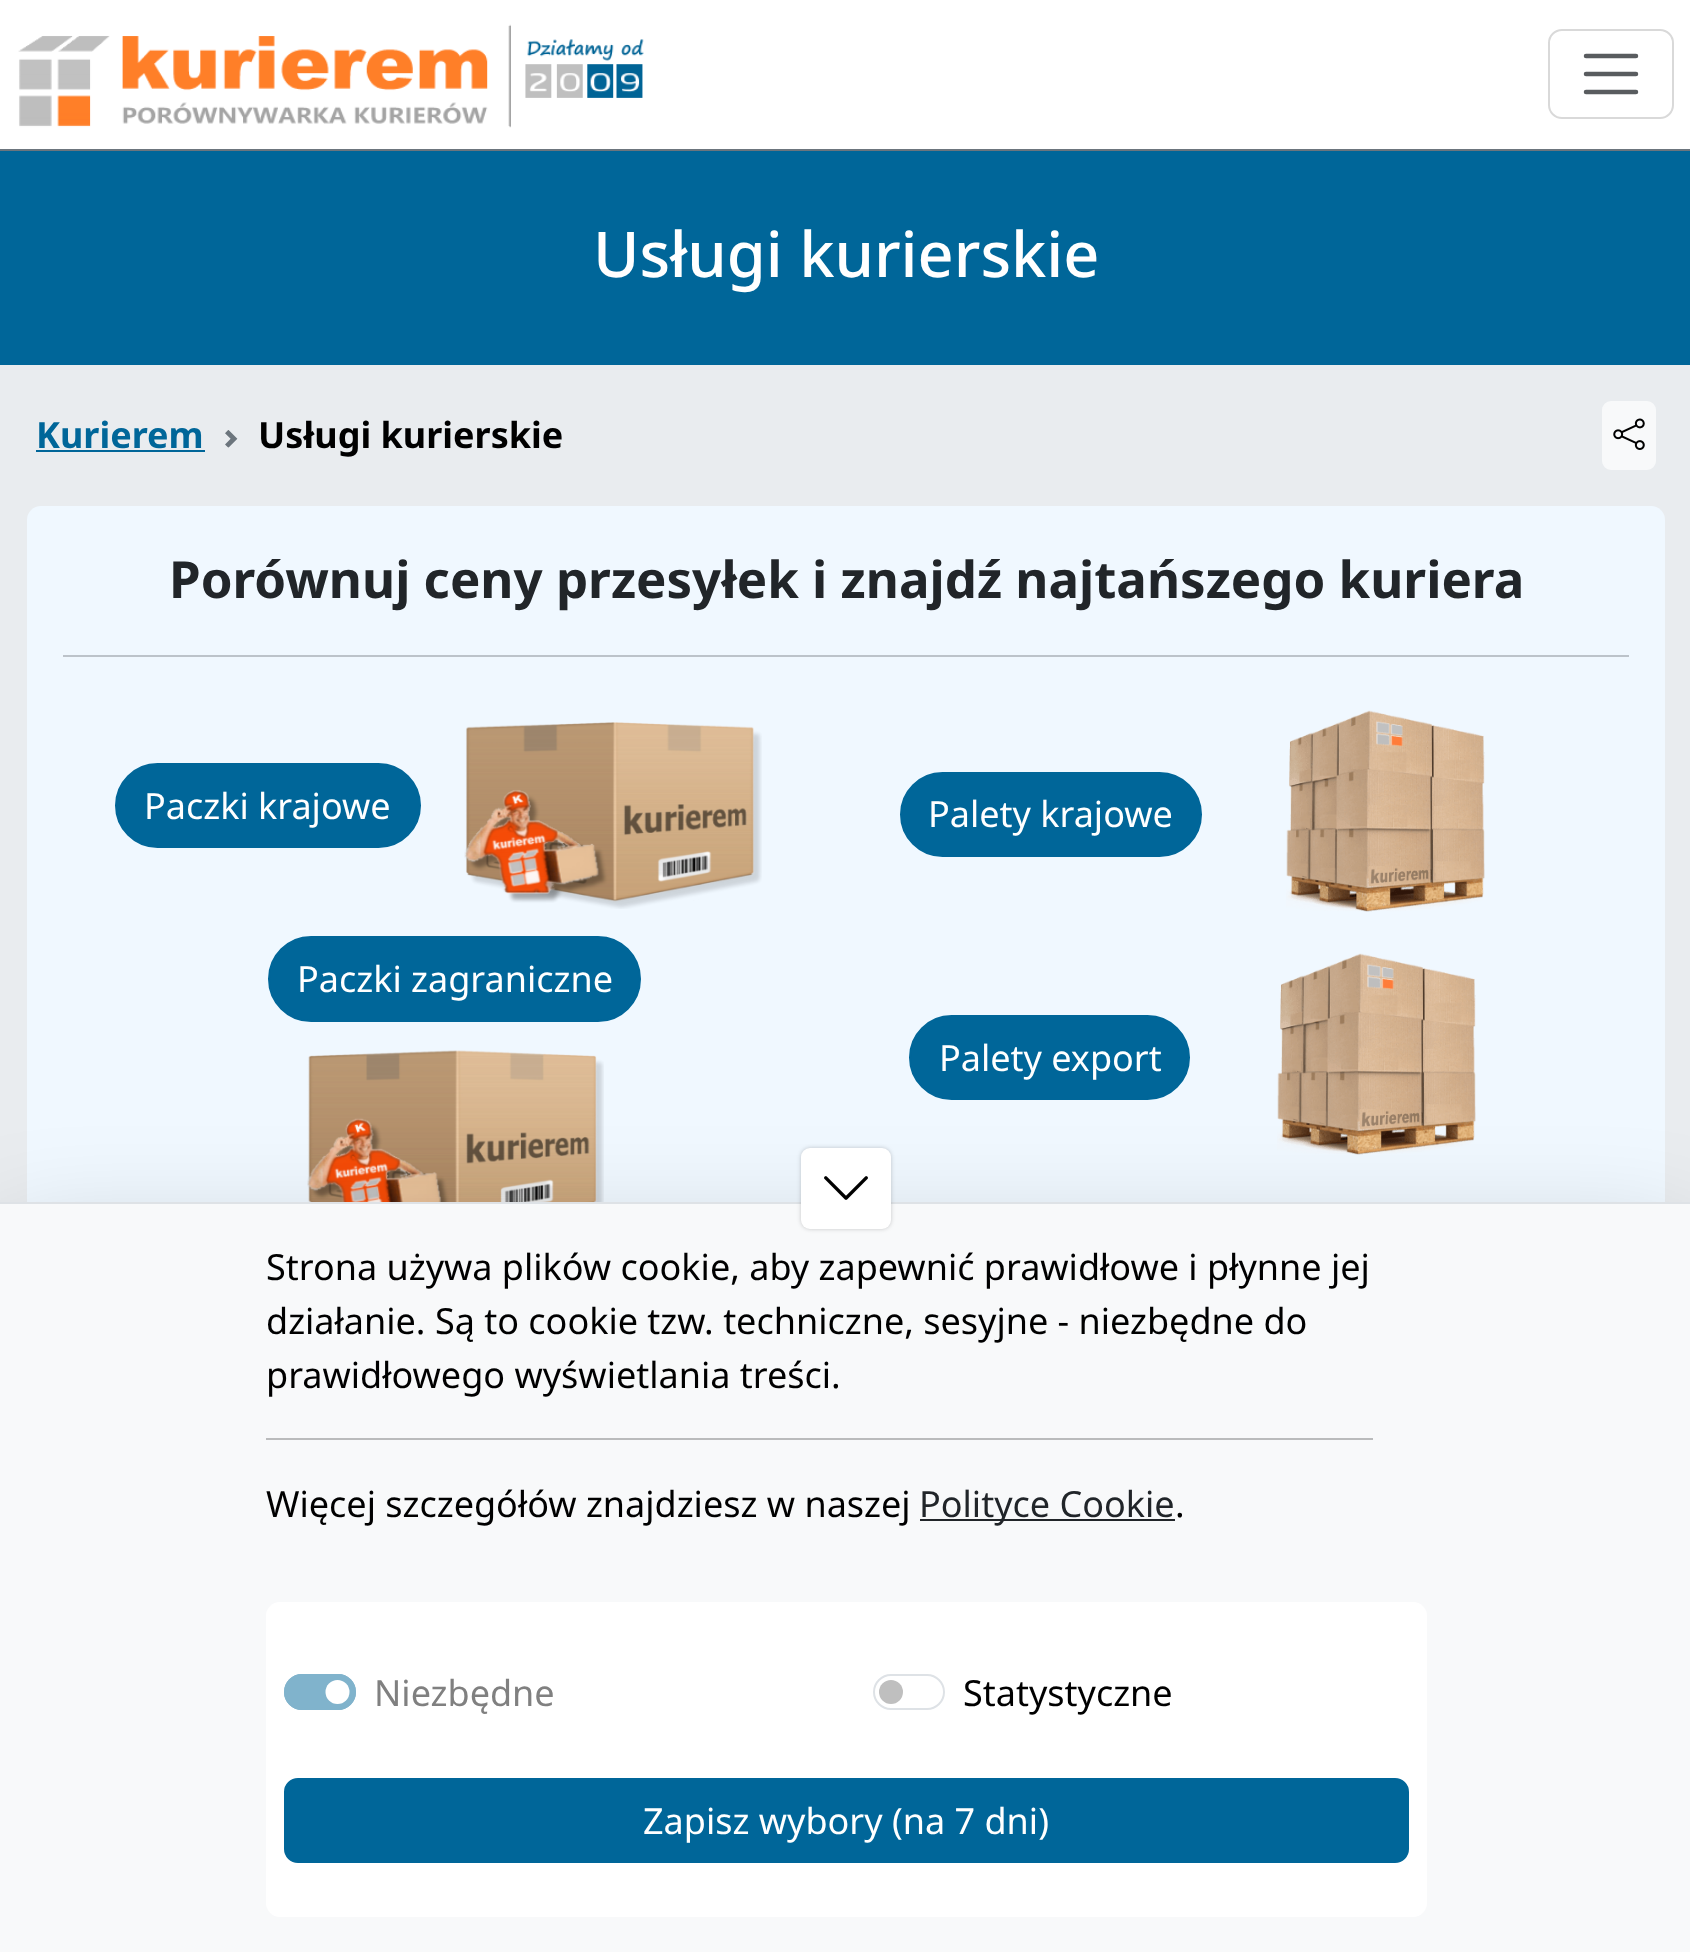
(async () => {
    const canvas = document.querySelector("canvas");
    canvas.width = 1690;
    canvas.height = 1952;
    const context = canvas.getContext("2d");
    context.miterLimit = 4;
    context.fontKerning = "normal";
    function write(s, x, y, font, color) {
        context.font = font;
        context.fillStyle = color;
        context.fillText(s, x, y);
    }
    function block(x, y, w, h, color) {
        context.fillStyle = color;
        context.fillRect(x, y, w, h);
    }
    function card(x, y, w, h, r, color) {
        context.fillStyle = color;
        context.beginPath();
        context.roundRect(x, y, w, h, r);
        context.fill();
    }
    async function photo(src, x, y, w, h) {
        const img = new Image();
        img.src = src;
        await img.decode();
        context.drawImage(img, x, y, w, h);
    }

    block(0, 0, 1690, 1952, "rgb(233, 236, 239)");
    block(0, 0, 1690, 149, "rgb(255, 255, 255)");
    block(0, 149, 1690, 2, "rgb(108, 117, 125)");
    await photo("media/1.png", 18, 24, 626, 104);
    context.beginPath();
    context.roundRect(1549, 30, 124, 88, 13);
    context.strokeStyle = "rgb(217, 217, 217)";
    context.lineWidth = 2;
    context.stroke();
    context.beginPath();
    context.moveTo(1586, 56);
    context.lineTo(1636, 56);
    context.moveTo(1586, 74);
    context.lineTo(1636, 74);
    context.moveTo(1586, 92);
    context.lineTo(1636, 92);
    context.strokeStyle = "rgb(89, 92, 95)";
    context.lineWidth = 4.5;
    context.lineCap = "round";
    context.stroke();
    block(0, 151, 1690, 214, "rgb(0, 102, 153)");
    write("Usługi kurierskie", 593, 277, "500 63px Noto Sans", "rgb(255, 255, 255)");
    write("Kurierem", 36, 448, "bold 36px Noto Sans", "rgb(0, 102, 153)");
    block(36, 450, 169, 2, "rgb(0, 102, 153)");
    await photo("media/2.png", 225, 430, 13, 18);
    write("Usługi kurierskie", 258, 448, "bold 36px Noto Sans", "rgb(0, 0, 0)");
    context.fillStyle = "rgb(248, 249, 250)";
    context.beginPath();
    context.roundRect(1603, 402, 52, 67, 8);
    context.fill();
    context.strokeStyle = "rgb(248, 249, 250)";
    context.lineWidth = 2;
    context.stroke();
    await photo("media/3.png", 1613, 418, 32, 32);
    card(27, 506, 1638, 779, 14, "rgb(240, 248, 255)");
    write("Porównuj ceny przesyłek i znajdź najtańszego kuriera", 169, 598, "bold 51px Noto Sans", "rgb(33, 37, 41)");
    block(63, 655, 1566, 2, "rgb(188, 195, 202)");
    context.fillStyle = "rgb(0, 102, 153)";
    context.beginPath();
    context.roundRect(116, 764, 304, 83, 41.5);
    context.fill();
    context.strokeStyle = "rgb(0, 102, 153)";
    context.stroke();
    write("Paczki krajowe", 144, 819, "36px Noto Sans", "rgb(255, 255, 255)");
    await photo("media/4.png", 464, 722, 298, 187);
    context.fillStyle = "rgb(0, 102, 153)";
    context.beginPath();
    context.roundRect(901, 773, 300, 83, 41.5);
    context.fill();
    context.stroke();
    write("Palety krajowe", 928, 827, "36px Noto Sans", "rgb(255, 255, 255)");
    await photo("media/5.png", 1286, 710, 199, 202);
    context.fillStyle = "rgb(0, 102, 153)";
    context.beginPath();
    context.roundRect(269, 937, 371, 84, 42);
    context.fill();
    context.stroke();
    write("Paczki zagraniczne", 297, 992, "36px Noto Sans", "rgb(255, 255, 255)");
    await photo("media/6.png", 307, 1050, 297, 152);
    context.fillStyle = "rgb(0, 102, 153)";
    context.beginPath();
    context.roundRect(910, 1016, 279, 83, 41.5);
    context.fill();
    context.stroke();
    write("Palety export", 939, 1071, "36px Noto Sans", "rgb(255, 255, 255)");
    await photo("media/7.png", 1277, 953, 199, 202);
    context.fillStyle = "rgba(0, 0, 0, 0.18)";
    context.filter = "blur(54px)";
    context.beginPath();
    context.rect(0, 1238, 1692, 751);
    context.fill();
    context.filter = "none";
    block(0, 1204, 1690, 748, "rgb(248, 249, 250)");
    block(0, 1202, 1690, 2, "rgb(222, 226, 230)");
    context.fillStyle = "rgba(0, 0, 0, 0.2)";
    context.filter = "blur(2px)";
    context.beginPath();
    context.roundRect(801, 1148, 90, 81, 9);
    context.fill();
    context.filter = "none";
    card(801, 1148, 90, 81, 9, "rgb(255, 255, 255)");
    await photo("media/8.png", 824, 1176, 44, 24);
    write("Strona używa plików cookie, aby zapewnić prawidłowe i płynne jej", 266, 1280, "36px Noto Sans", "rgb(0, 0, 0)");
    write("działanie. Są to cookie tzw. techniczne, sesyjne - niezbędne do", 266, 1334, "36px Noto Sans", "rgb(0, 0, 0)");
    write("prawidłowego wyświetlania treści.", 266, 1388, "36px Noto Sans", "rgb(0, 0, 0)");
    block(266, 1438, 1107, 2, "rgb(186, 187, 188)");
    write("Więcej szczegółów znajdziesz w naszej", 266, 1517, "36px Noto Sans", "rgb(0, 0, 0)");
    block(920, 1519, 255, 2, "rgb(33, 37, 41)");
    write("Polityce Cookie", 919, 1517, "36px Noto Sans", "rgb(33, 37, 41)");
    write(".", 1175, 1517, "36px Noto Sans", "rgb(0, 0, 0)");
    card(266, 1602, 1161, 315, 14, "rgb(255, 255, 255)");
    card(284, 1674, 72, 36, 18, "rgb(128, 179, 204)");
    context.fillStyle = "rgb(255, 255, 255)";
    context.beginPath();
    context.arc(337.5, 1692, 12, 0, Math.PI * 2);
    context.fill();
    context.beginPath();
    context.roundRect(285, 1675, 70, 34, 17);
    context.strokeStyle = "rgb(128, 179, 204)";
    context.stroke();
    write("Niezbędne", 374, 1706, "36px Noto Sans", "rgb(128, 128, 128)");
    context.fillStyle = "rgb(191, 191, 191)";
    context.beginPath();
    context.arc(891, 1692, 12, 0, Math.PI * 2);
    context.fill();
    context.beginPath();
    context.roundRect(874, 1675, 70, 34, 17);
    context.strokeStyle = "rgb(222, 226, 230)";
    context.stroke();
    write("Statystyczne", 963, 1706, "36px Noto Sans", "rgb(0, 0, 0)");
    context.fillStyle = "rgb(0, 102, 153)";
    context.beginPath();
    context.roundRect(285, 1779, 1123, 83, 13);
    context.fill();
    context.strokeStyle = "rgb(0, 102, 153)";
    context.stroke();
    write("Zapisz wybory (na 7 dni)", 643, 1834, "36px Noto Sans", "rgb(255, 255, 255)");
})();
